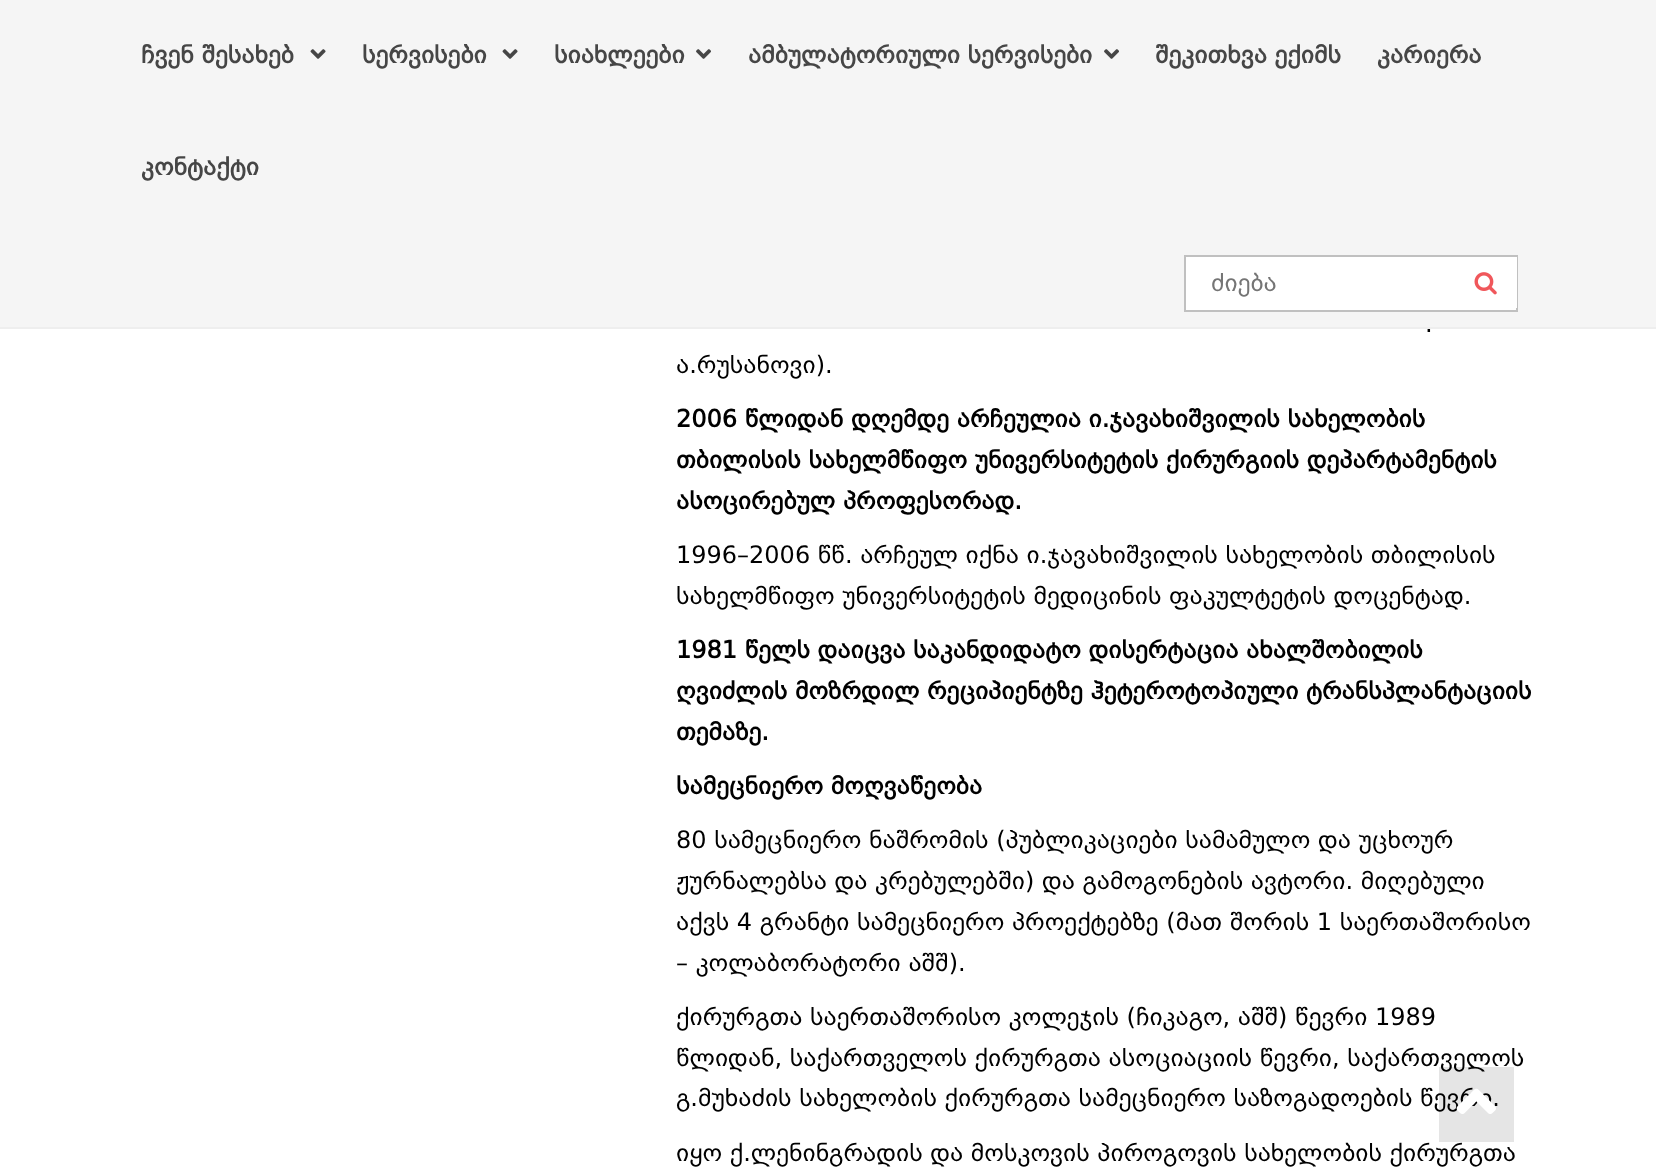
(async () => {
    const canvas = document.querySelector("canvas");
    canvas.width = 1656;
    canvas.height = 1175;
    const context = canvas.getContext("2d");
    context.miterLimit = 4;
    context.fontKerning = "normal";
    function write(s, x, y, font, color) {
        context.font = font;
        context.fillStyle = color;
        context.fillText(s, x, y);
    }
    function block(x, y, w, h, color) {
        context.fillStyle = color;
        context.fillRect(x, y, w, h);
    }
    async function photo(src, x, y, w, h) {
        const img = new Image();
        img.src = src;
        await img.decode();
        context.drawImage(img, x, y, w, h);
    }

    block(0, 0, 1656, 1175, "rgb(255, 255, 255)");
    block(0, 0, 1656, 327, "rgb(245, 245, 245)");
    block(0, 327, 1656, 2, "rgb(238, 238, 238)");
    write("ჩვენ შესახებ", 141, 63, "bold 24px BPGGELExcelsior", "rgb(70, 70, 70)");
    await photo("media/1.png", 310, 49, 16, 10);
    write("სერვისები", 362, 63, "bold 24px BPGGELExcelsior", "rgb(70, 70, 70)");
    await photo("media/1.png", 502, 49, 16, 10);
    write("სიახლეები", 554, 63, "bold 24px BPGGELExcelsior", "rgb(70, 70, 70)");
    await photo("media/2.png", 696, 49, 15, 10);
    write("ამბულატორიული სერვისები", 748, 63, "bold 24px BPGGELExcelsior", "rgb(70, 70, 70)");
    await photo("media/2.png", 1104, 49, 15, 10);
    write("შეკითხვა ექიმს", 1155, 63, "bold 24px BPGGELExcelsior", "rgb(70, 70, 70)");
    write("კარიერა", 1377, 63, "bold 24px BPGGELExcelsior", "rgb(70, 70, 70)");
    write("კონტაქტი", 141, 175, "bold 24px BPGGELExcelsior", "rgb(70, 70, 70)");
    context.fillStyle = "rgb(255, 255, 255)";
    context.beginPath();
    context.rect(1185, 256, 332, 55);
    context.fill();
    context.strokeStyle = "rgb(192, 192, 192)";
    context.lineWidth = 2;
    context.stroke();
    write("ძიება", 1211, 291, "24px BPGGELExcelsior", "rgb(117, 117, 117)");
    await photo("media/3.png", 1474, 272, 23, 23);
    block(1516, 257, 1, 51, "rgb(255, 255, 255)");
    write(".", 1425, 332, "24px BPGGELExcelsior", "rgb(0, 0, 0)");
    write("ა.რუსანოვი).", 676, 373, "24px BPGGELExcelsior", "rgb(0, 0, 0)");
    write("2006 წლიდან დღემდე არჩეულია ი.ჯავახიშვილის სახელობის", 676, 427, "bold 24px BPGGELExcelsior", "rgb(0, 0, 0)");
    write("თბილისის სახელმწიფო უნივერსიტეტის ქირურგიის დეპარტამენტის", 676, 468, "bold 24px BPGGELExcelsior", "rgb(0, 0, 0)");
    write("ასოცირებულ პროფესორად.", 676, 509, "bold 24px BPGGELExcelsior", "rgb(0, 0, 0)");
    write("1996–2006 წწ. არჩეულ იქნა ი.ჯავახიშვილის სახელობის თბილისის", 676, 563, "24px BPGGELExcelsior", "rgb(0, 0, 0)");
    write("სახელმწიფო უნივერსიტეტის მედიცინის ფაკულტეტის დოცენტად.", 676, 604, "24px BPGGELExcelsior", "rgb(0, 0, 0)");
    write("1981 წელს დაიცვა საკანდიდატო დისერტაცია ახალშობილის", 676, 658, "bold 24px BPGGELExcelsior", "rgb(0, 0, 0)");
    write("ღვიძლის მოზრდილ რეციპიენტზე ჰეტეროტოპიული ტრანსპლანტაციის", 676, 699, "bold 24px BPGGELExcelsior", "rgb(0, 0, 0)");
    write("თემაზე.", 676, 740, "bold 24px BPGGELExcelsior", "rgb(0, 0, 0)");
    write("სამეცნიერო მოღვაწეობა", 676, 794, "bold 24px BPGGELExcelsior", "rgb(0, 0, 0)");
    write("80 სამეცნიერო ნაშრომის (პუბლიკაციები სამამულო და უცხოურ", 676, 848, "24px BPGGELExcelsior", "rgb(0, 0, 0)");
    write("ჟურნალებსა და კრებულებში) და გამოგონების ავტორი. მიღებული", 676, 889, "24px BPGGELExcelsior", "rgb(0, 0, 0)");
    write("აქვს 4 გრანტი სამეცნიერო პროექტებზე (მათ შორის 1 საერთაშორისო", 676, 930, "24px BPGGELExcelsior", "rgb(0, 0, 0)");
    write("– კოლაბორატორი აშშ).", 676, 971, "24px BPGGELExcelsior", "rgb(0, 0, 0)");
    write("ქირურგთა საერთაშორისო კოლეჯის (ჩიკაგო, აშშ) წევრი 1989", 676, 1025, "24px BPGGELExcelsior", "rgb(0, 0, 0)");
    write("წლიდან, საქართველოს ქირურგთა ასოციაციის წევრი, საქართველოს", 676, 1066, "24px BPGGELExcelsior", "rgb(0, 0, 0)");
    write("გ.მუხაძის სახელობის ქირურგთა სამეცნიერო საზოგადოების წევრი.", 676, 1106, "24px BPGGELExcelsior", "rgb(0, 0, 0)");
    write("იყო ქ.ლენინგრადის და მოსკოვის პიროგოვის სახელობის ქირურგთა", 676, 1161, "24px BPGGELExcelsior", "rgb(0, 0, 0)");
    block(1439, 1067, 75, 75, "rgba(0, 0, 0, 0.1)");
    await photo("media/4.png", 1456, 1088, 40, 26);
})();
